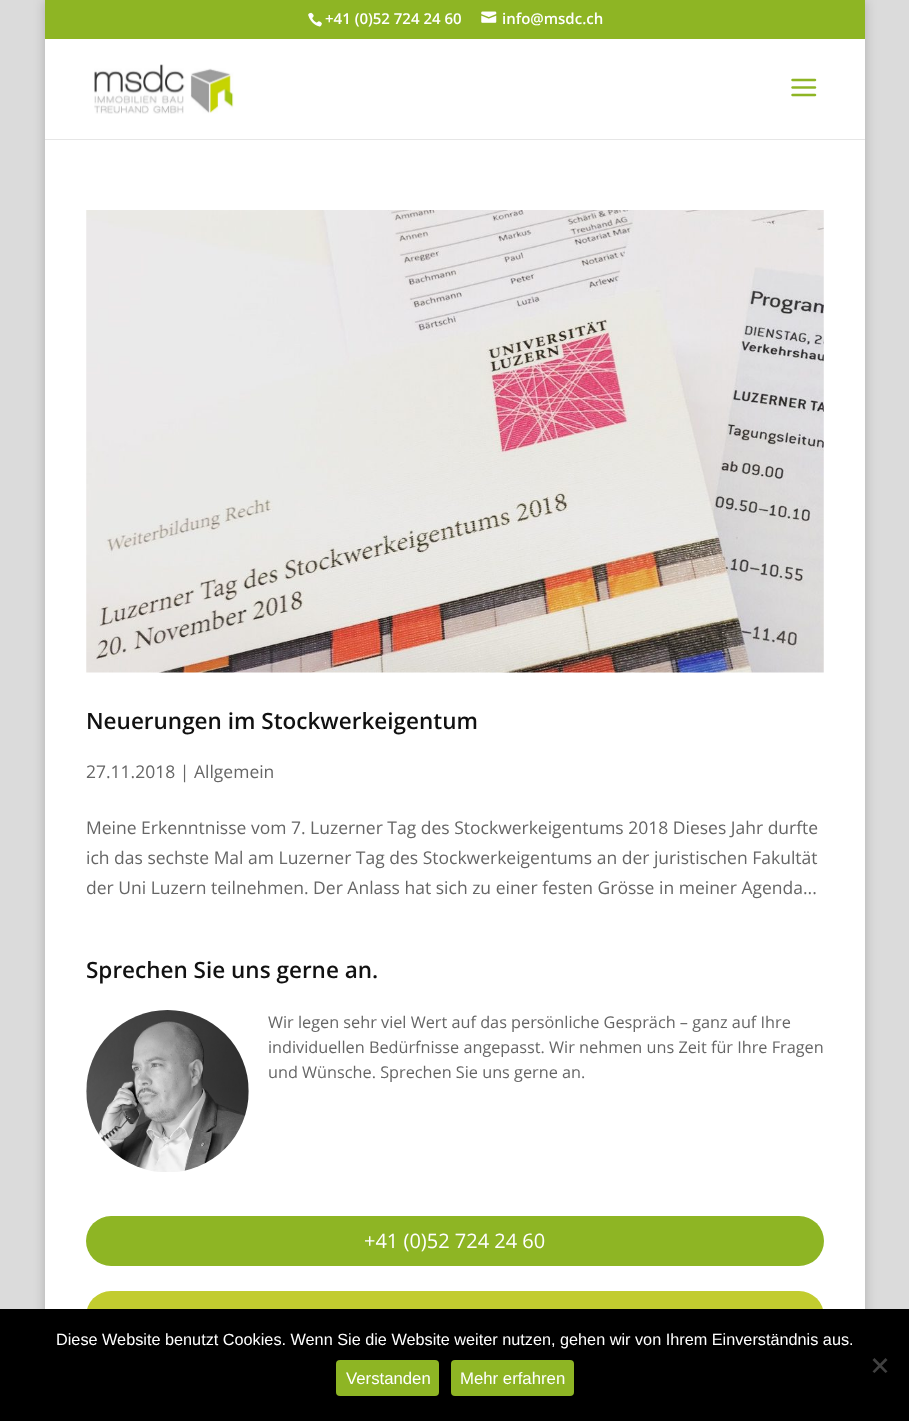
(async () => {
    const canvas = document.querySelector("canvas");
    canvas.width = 909;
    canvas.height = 1421;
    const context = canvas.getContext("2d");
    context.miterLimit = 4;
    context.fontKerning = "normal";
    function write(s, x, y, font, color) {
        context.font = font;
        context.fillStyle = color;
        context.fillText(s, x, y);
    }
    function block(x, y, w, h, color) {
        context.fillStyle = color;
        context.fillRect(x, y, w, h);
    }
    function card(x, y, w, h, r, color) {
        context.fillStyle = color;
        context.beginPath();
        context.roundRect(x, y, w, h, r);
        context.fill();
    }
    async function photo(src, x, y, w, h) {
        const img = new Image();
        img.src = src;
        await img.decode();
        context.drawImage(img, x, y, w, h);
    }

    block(0, 0, 909, 1421, "rgb(219, 219, 219)");
    context.fillStyle = "rgba(0, 0, 0, 0.2)";
    context.filter = "blur(6px)";
    context.beginPath();
    context.rect(45, 0, 820, 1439);
    context.fill();
    context.filter = "none";
    block(45, 0, 820, 39, "rgb(142, 181, 36)");
    await photo("media/1.png", 308, 12, 14, 15);
    write("+41 (0)52 724 24 60", 325, 24, "600 15px Open Sans", "rgb(255, 255, 255)");
    await photo("media/2.png", 481, 11, 16, 12);
    write("info@msdc.ch", 502, 24, "600 15px Open Sans", "rgb(255, 255, 255)");
    block(45, 139, 820, 1, "rgb(230, 230, 230)");
    block(45, 39, 820, 100, "rgb(255, 255, 255)");
    await photo("media/3.png", 94, 64, 140, 50);
    await photo("media/4.png", 791, 78, 26, 19);
    block(45, 140, 820, 1169, "rgb(255, 255, 255)");
    await photo("media/5.png", 86, 210, 738, 463);
    write("Neuerungen im Stockwerkeigentum", 86, 729, "600 22.5px Open Sans", "rgb(17, 17, 17)");
    write("27.11.2018 | Allgemein", 86, 778, "17.5px Open Sans", "rgb(102, 102, 102)");
    write("Meine Erkenntnisse vom 7. Luzerner Tag des Stockwerkeigentums 2018 Dieses Jahr durfte", 86, 834, "17.5px Open Sans", "rgb(102, 102, 102)");
    write("ich das sechste Mal am Luzerner Tag des Stockwerkeigentums an der juristischen Fakultät", 86, 864, "17.5px Open Sans", "rgb(102, 102, 102)");
    write("der Uni Luzern teilnehmen. Der Anlass hat sich zu einer festen Grösse in meiner Agenda...", 86, 894, "17.5px Open Sans", "rgb(102, 102, 102)");
    write("Sprechen Sie uns gerne an.", 86, 978, "600 22.5px Open Sans", "rgb(17, 17, 17)");
    await photo("media/6.png", 86, 1010, 163, 162);
    write("Wir legen sehr viel Wert auf das persönliche Gespräch – ganz auf Ihre", 268, 1028, "16.25px Open Sans", "rgb(102, 102, 102)");
    write("individuellen Bedürfnisse angepasst. Wir nehmen uns Zeit für Ihre Fragen", 268, 1053, "16.25px Open Sans", "rgb(102, 102, 102)");
    write("und Wünsche. Sprechen Sie uns gerne an.", 268, 1078, "16.25px Open Sans", "rgb(102, 102, 102)");
    card(86, 1216, 738, 50, 25, "rgb(142, 181, 36)");
    write("+41 (0)52 724 24 60", 364, 1248, "20px Open Sans", "rgb(255, 255, 255)");
    card(86, 1291, 738, 50, 25, "rgb(194, 204, 47)");
    block(0, 1309, 909, 112, "rgb(0, 0, 0)");
    write("Diese Website benutzt Cookies. Wenn Sie die Website weiter nutzen, gehen wir von Ihrem Einverständnis aus.", 56, 1345, "16.25px Liberation Sans", "rgb(255, 255, 255)");
    context.fillStyle = "rgb(64, 64, 64)";
    context.beginPath();
    context.moveTo(885.5, 1358);
    context.lineTo(887.5, 1360);
    context.lineTo(874.5, 1373);
    context.lineTo(872.5, 1371.5);
    context.closePath();
    context.fill();
    context.beginPath();
    context.moveTo(872.5, 1360);
    context.lineTo(874.5, 1358);
    context.lineTo(887.5, 1371.5);
    context.lineTo(885.5, 1373);
    context.closePath();
    context.fill();
    card(336, 1360, 103, 36, 4, "rgb(142, 181, 36)");
    write("Verstanden", 346, 1384, "16.75px Liberation Sans", "rgb(255, 255, 255)");
    card(451, 1360, 123, 36, 4, "rgb(142, 181, 36)");
    write("Mehr erfahren", 460, 1384, "16.75px Liberation Sans", "rgb(255, 255, 255)");
})();
